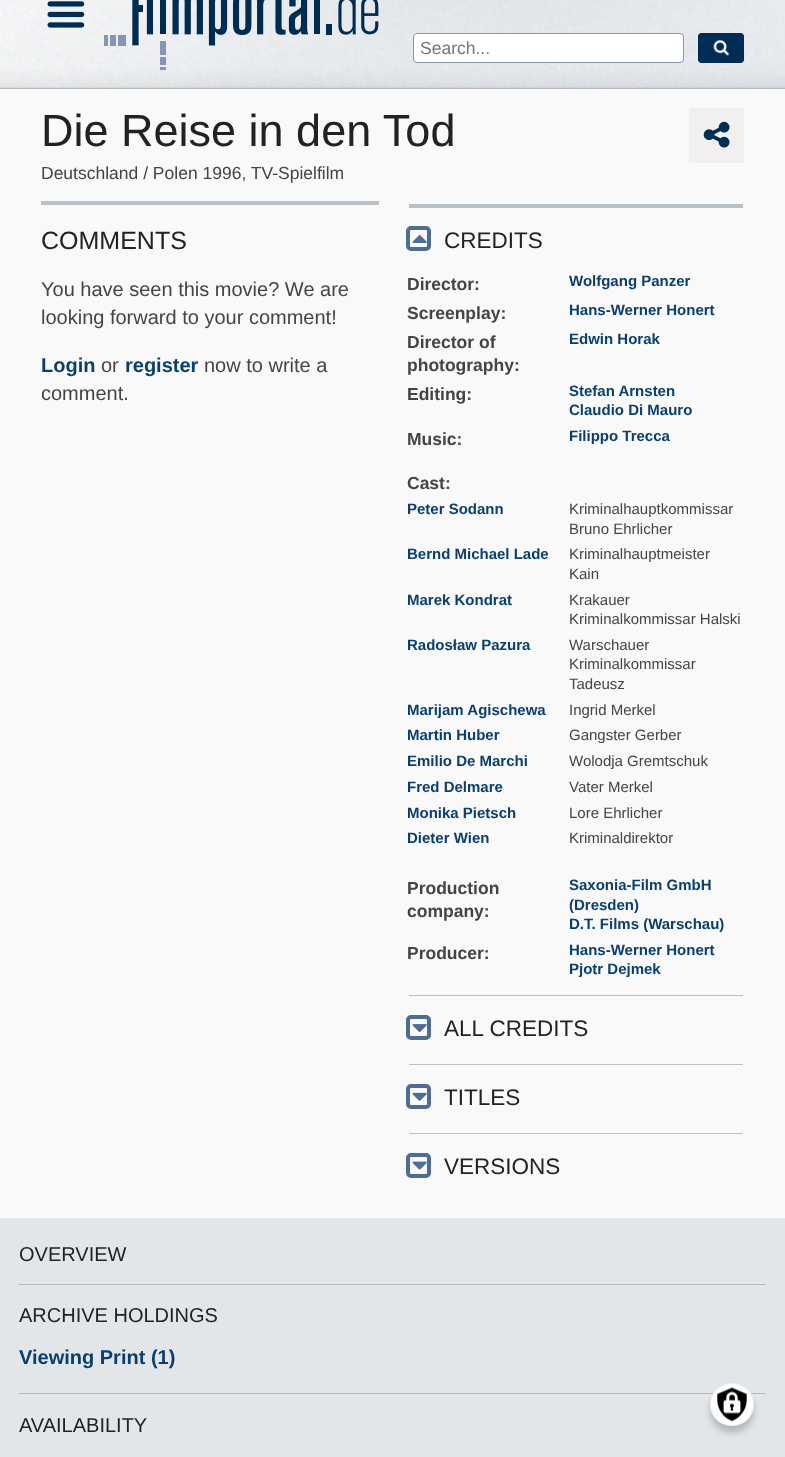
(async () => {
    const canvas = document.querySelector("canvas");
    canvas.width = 785;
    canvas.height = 1457;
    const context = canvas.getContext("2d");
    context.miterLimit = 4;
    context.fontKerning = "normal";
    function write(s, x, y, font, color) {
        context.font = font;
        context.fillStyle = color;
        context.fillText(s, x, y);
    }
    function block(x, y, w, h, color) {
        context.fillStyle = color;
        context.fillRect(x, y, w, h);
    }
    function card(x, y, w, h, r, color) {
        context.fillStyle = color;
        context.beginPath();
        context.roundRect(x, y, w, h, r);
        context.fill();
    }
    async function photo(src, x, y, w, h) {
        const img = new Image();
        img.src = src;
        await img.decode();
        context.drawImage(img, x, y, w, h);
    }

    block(0, 0, 785, 1457, "rgb(249, 249, 249)");
    await photo("media/1.png", 0, 0, 785, 89);
    await photo("media/2.png", 47, 1, 38, 27);
    await photo("media/3.png", 104, 0, 275, 70);
    context.fillStyle = "rgb(255, 255, 255)";
    context.beginPath();
    context.roundRect(413.5, 33.5, 270, 29, 3.5);
    context.fill();
    context.strokeStyle = "rgb(137, 152, 166)";
    context.stroke();
    write("Search...", 420, 54, "17.5px Liberation Sans", "rgb(117, 117, 117)");
    card(698, 33, 46, 30, 4, "rgb(0, 45, 84)");
    await photo("media/4.png", 713, 40, 16, 16);
    context.beginPath();
    context.roundRect(698.5, 33.5, 45, 29, 3.5);
    context.strokeStyle = "rgb(0, 45, 84)";
    context.stroke();
    write("Die Reise in den Tod", 41, 146, "45px Liberation Sans", "rgb(34, 34, 34)");
    block(689, 108, 55, 55, "rgb(241, 239, 239)");
    await photo("media/5.png", 703, 121, 27, 27);
    write("Deutschland / Polen 1996, TV-Spielfilm", 41, 179, "17.5px Liberation Sans", "rgb(68, 68, 68)");
    block(41, 201, 338, 4, "rgb(185, 192, 199)");
    write("COMMENTS", 41, 249, "25px Liberation Sans", "rgb(34, 34, 34)");
    write("You have seen this movie? We are", 41, 296, "20px Liberation Sans", "rgb(68, 68, 68)");
    write("looking forward to your comment!", 41, 324, "20px Liberation Sans", "rgb(68, 68, 68)");
    write("Login", 41, 372, "bold 20px Liberation Sans", "rgb(9, 62, 109)");
    write("or", 101, 372, "20px Liberation Sans", "rgb(68, 68, 68)");
    write("register", 125, 372, "bold 20px Liberation Sans", "rgb(9, 62, 109)");
    write("now to write a", 204, 372, "20px Liberation Sans", "rgb(68, 68, 68)");
    write("comment.", 41, 400, "20px Liberation Sans", "rgb(68, 68, 68)");
    block(409, 204, 334, 4, "rgb(185, 192, 199)");
    context.beginPath();
    context.roundRect(408, 228, 21, 21, 3);
    context.strokeStyle = "rgb(78, 109, 149)";
    context.lineWidth = 4;
    context.stroke();
    await photo("media/6.png", 412, 235, 15, 8);
    write("CREDITS", 444, 248, "22.5px Liberation Sans", "rgb(34, 34, 34)");
    write("Director:", 407, 290, "bold 17.5px Liberation Sans", "rgb(68, 68, 68)");
    write("Wolfgang Panzer", 569, 286, "bold 15px Liberation Sans", "rgb(9, 62, 109)");
    write("Screenplay:", 407, 319, "bold 17.5px Liberation Sans", "rgb(68, 68, 68)");
    write("Hans-Werner Honert", 569, 315, "bold 15px Liberation Sans", "rgb(9, 62, 109)");
    write("Director of", 407, 348, "bold 17.5px Liberation Sans", "rgb(68, 68, 68)");
    write("photography:", 407, 371, "bold 17.5px Liberation Sans", "rgb(68, 68, 68)");
    write("Edwin Horak", 569, 344, "bold 15px Liberation Sans", "rgb(9, 62, 109)");
    write("Editing:", 407, 400, "bold 17.5px Liberation Sans", "rgb(68, 68, 68)");
    write("Stefan Arnsten", 569, 396, "bold 15px Liberation Sans", "rgb(9, 62, 109)");
    write("Claudio Di Mauro", 569, 415, "bold 15px Liberation Sans", "rgb(9, 62, 109)");
    write("Music:", 407, 445, "bold 17.5px Liberation Sans", "rgb(68, 68, 68)");
    write("Filippo Trecca", 569, 441, "bold 15px Liberation Sans", "rgb(9, 62, 109)");
    write("Cast:", 407, 489, "bold 17.5px Liberation Sans", "rgb(68, 68, 68)");
    write("Peter Sodann", 407, 514, "bold 15px Liberation Sans", "rgb(9, 62, 109)");
    write("Kriminalhauptkommissar", 569, 514, "15px Liberation Sans", "rgb(68, 68, 68)");
    write("Bruno Ehrlicher", 569, 534, "15px Liberation Sans", "rgb(68, 68, 68)");
    write("Bernd Michael Lade", 407, 559, "bold 15px Liberation Sans", "rgb(9, 62, 109)");
    write("Kriminalhauptmeister", 569, 559, "15px Liberation Sans", "rgb(68, 68, 68)");
    write("Kain", 569, 579, "15px Liberation Sans", "rgb(68, 68, 68)");
    write("Marek Kondrat", 407, 605, "bold 15px Liberation Sans", "rgb(9, 62, 109)");
    write("Krakauer", 569, 605, "15px Liberation Sans", "rgb(68, 68, 68)");
    write("Kriminalkommissar Halski", 569, 624, "15px Liberation Sans", "rgb(68, 68, 68)");
    write("Radosław Pazura", 407, 650, "bold 15px Liberation Sans", "rgb(9, 62, 109)");
    write("Warschauer", 569, 650, "15px Liberation Sans", "rgb(68, 68, 68)");
    write("Kriminalkommissar", 569, 669, "15px Liberation Sans", "rgb(68, 68, 68)");
    write("Tadeusz", 569, 689, "15px Liberation Sans", "rgb(68, 68, 68)");
    write("Marijam Agischewa", 407, 715, "bold 15px Liberation Sans", "rgb(9, 62, 109)");
    write("Ingrid Merkel", 569, 715, "15px Liberation Sans", "rgb(68, 68, 68)");
    write("Martin Huber", 407, 740, "bold 15px Liberation Sans", "rgb(9, 62, 109)");
    write("Gangster Gerber", 569, 740, "15px Liberation Sans", "rgb(68, 68, 68)");
    write("Emilio De Marchi", 407, 766, "bold 15px Liberation Sans", "rgb(9, 62, 109)");
    write("Wolodja Gremtschuk", 569, 766, "15px Liberation Sans", "rgb(68, 68, 68)");
    write("Fred Delmare", 407, 792, "bold 15px Liberation Sans", "rgb(9, 62, 109)");
    write("Vater Merkel", 569, 792, "15px Liberation Sans", "rgb(68, 68, 68)");
    write("Monika Pietsch", 407, 818, "bold 15px Liberation Sans", "rgb(9, 62, 109)");
    write("Lore Ehrlicher", 569, 818, "15px Liberation Sans", "rgb(68, 68, 68)");
    write("Dieter Wien", 407, 843, "bold 15px Liberation Sans", "rgb(9, 62, 109)");
    write("Kriminaldirektor", 569, 843, "15px Liberation Sans", "rgb(68, 68, 68)");
    write("Production", 407, 894, "bold 17.5px Liberation Sans", "rgb(68, 68, 68)");
    write("company:", 407, 917, "bold 17.5px Liberation Sans", "rgb(68, 68, 68)");
    write("Saxonia-Film GmbH", 569, 890, "bold 15px Liberation Sans", "rgb(9, 62, 109)");
    write("(Dresden)", 569, 910, "bold 15px Liberation Sans", "rgb(9, 62, 109)");
    write("D.T. Films (Warschau)", 569, 929, "bold 15px Liberation Sans", "rgb(9, 62, 109)");
    write("Producer:", 407, 959, "bold 17.5px Liberation Sans", "rgb(68, 68, 68)");
    write("Hans-Werner Honert", 569, 955, "bold 15px Liberation Sans", "rgb(9, 62, 109)");
    write("Pjotr Dejmek", 569, 974, "bold 15px Liberation Sans", "rgb(9, 62, 109)");
    block(409, 995, 334, 1, "rgb(185, 192, 199)");
    context.beginPath();
    context.roundRect(408, 1017, 21, 21, 3);
    context.stroke();
    await photo("media/7.png", 412, 1024, 15, 9);
    write("ALL CREDITS", 444, 1036, "22.5px Liberation Sans", "rgb(34, 34, 34)");
    block(409, 1064, 334, 1, "rgb(185, 192, 199)");
    context.beginPath();
    context.roundRect(408, 1086, 21, 21, 3);
    context.stroke();
    await photo("media/8.png", 412, 1092, 15, 9);
    write("TITLES", 444, 1105, "22.5px Liberation Sans", "rgb(34, 34, 34)");
    block(409, 1133, 334, 1, "rgb(185, 192, 199)");
    context.beginPath();
    context.roundRect(408, 1155, 21, 21, 3);
    context.stroke();
    await photo("media/9.png", 412, 1161, 15, 9);
    write("VERSIONS", 444, 1174, "22.5px Liberation Sans", "rgb(34, 34, 34)");
    block(0, 1218, 785, 239, "rgb(226, 230, 233)");
    block(19, 1284, 747, 1, "rgb(181, 187, 194)");
    write("OVERVIEW", 19, 1261, "20px Liberation Sans", "rgb(34, 34, 34)");
    block(19, 1393, 747, 1, "rgb(181, 187, 194)");
    write("ARCHIVE HOLDINGS", 19, 1322, "20px Liberation Sans", "rgb(34, 34, 34)");
    write("Viewing Print (1)", 19, 1364, "bold 20px Liberation Sans", "rgb(9, 62, 109)");
    write("AVAILABILITY", 19, 1432, "20px Liberation Sans", "rgb(34, 34, 34)");
    context.fillStyle = "rgba(0, 0, 0, 0.2)";
    context.filter = "blur(3px)";
    context.beginPath();
    context.roundRect(710, 1389, 44, 44, 22);
    context.fill();
    context.filter = "none";
    card(710, 1383, 44, 43, 21.5, "rgb(255, 255, 255)");
    await photo("media/10.png", 717, 1387, 30, 35);
    context.beginPath();
    context.roundRect(710.5, 1383.5, 43, 42, 21);
    context.strokeStyle = "rgb(234, 234, 234)";
    context.lineWidth = 1;
    context.stroke();
})();
